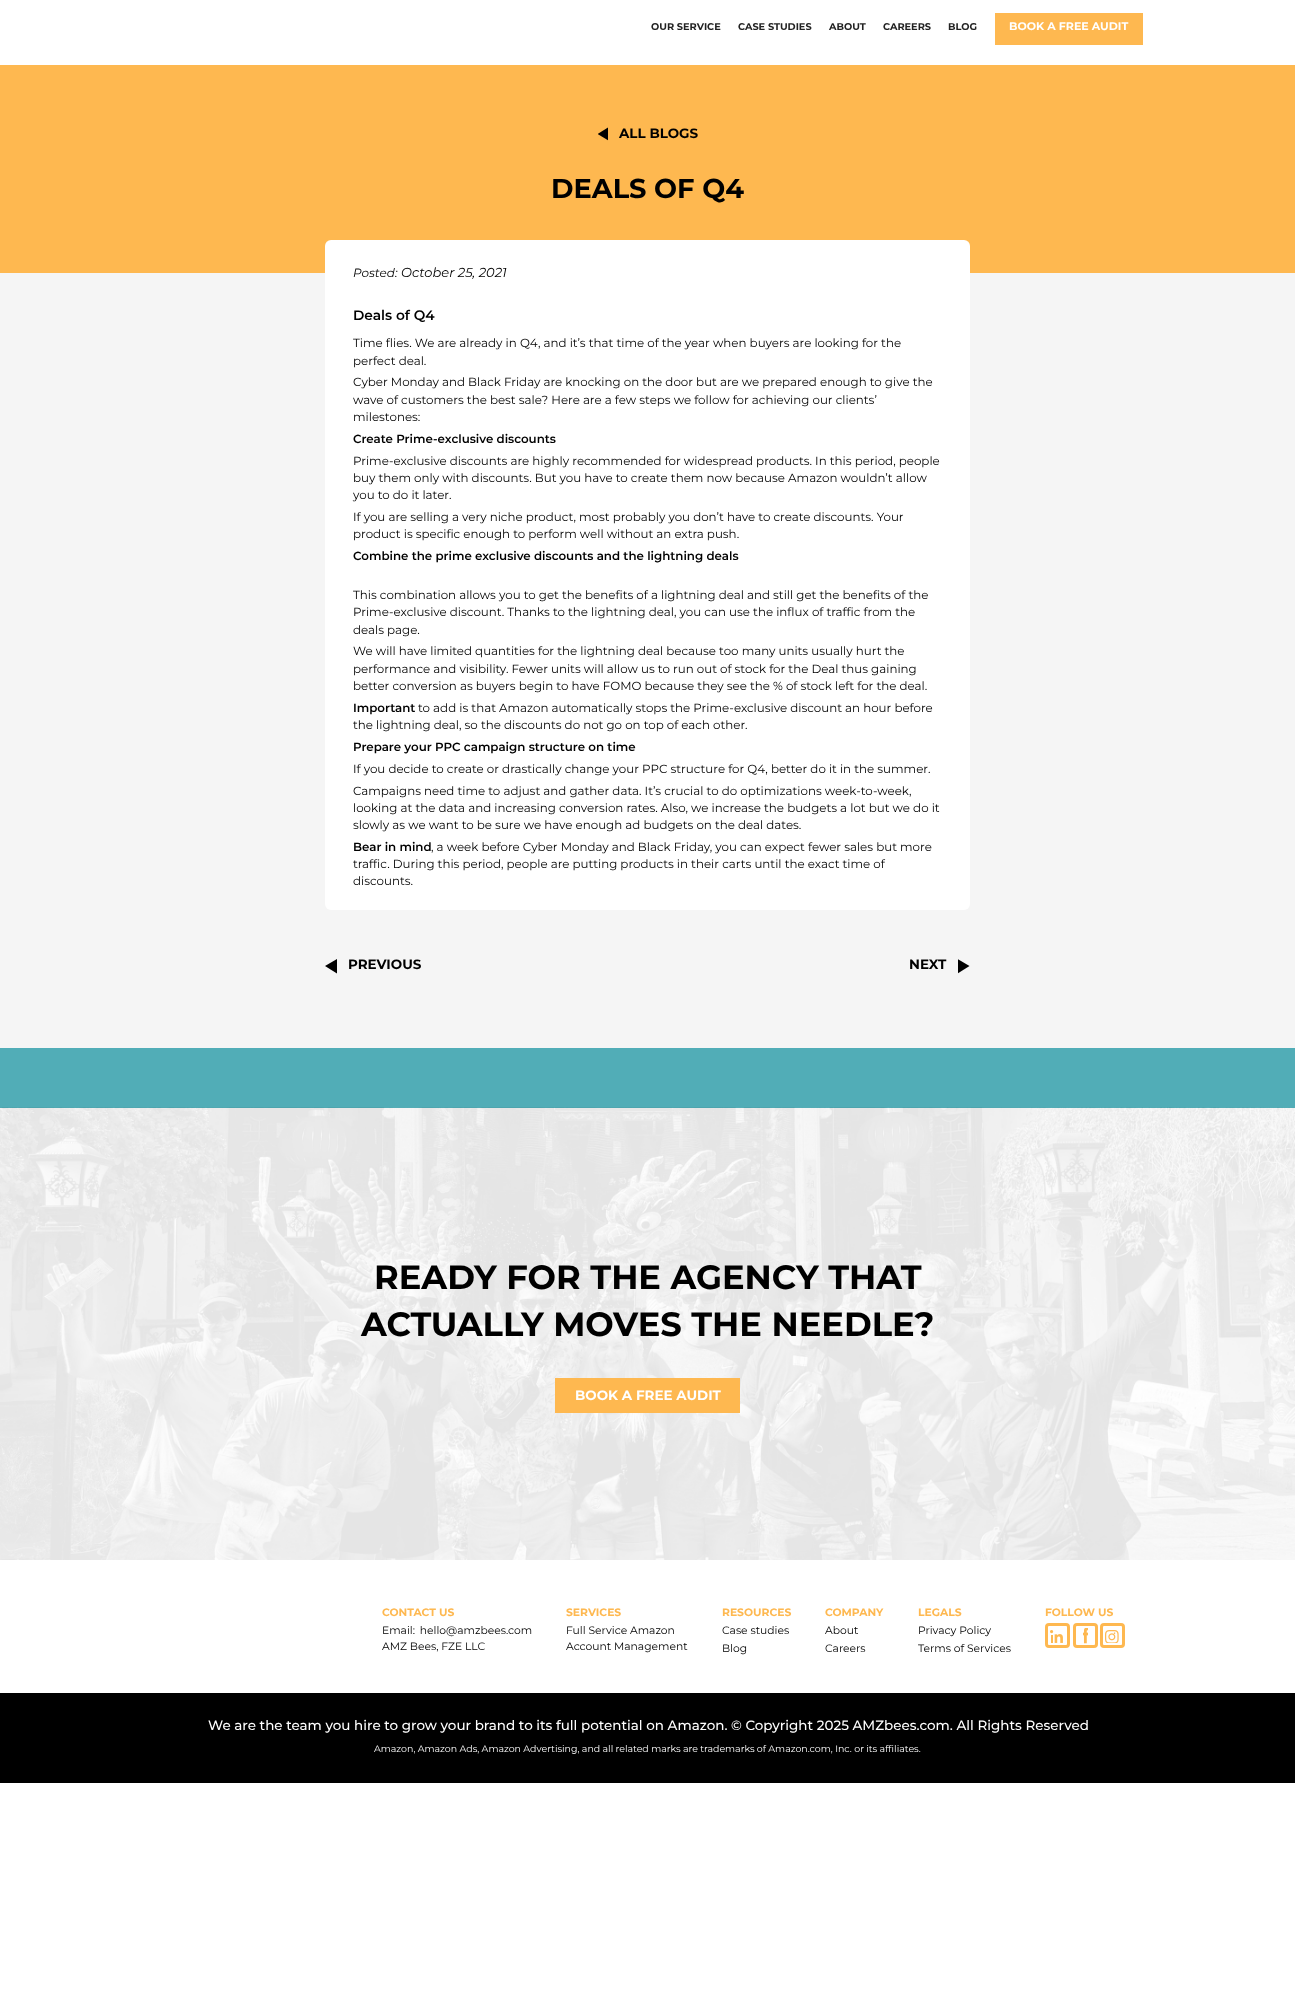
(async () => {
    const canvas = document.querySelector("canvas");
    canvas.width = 1295;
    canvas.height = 2012;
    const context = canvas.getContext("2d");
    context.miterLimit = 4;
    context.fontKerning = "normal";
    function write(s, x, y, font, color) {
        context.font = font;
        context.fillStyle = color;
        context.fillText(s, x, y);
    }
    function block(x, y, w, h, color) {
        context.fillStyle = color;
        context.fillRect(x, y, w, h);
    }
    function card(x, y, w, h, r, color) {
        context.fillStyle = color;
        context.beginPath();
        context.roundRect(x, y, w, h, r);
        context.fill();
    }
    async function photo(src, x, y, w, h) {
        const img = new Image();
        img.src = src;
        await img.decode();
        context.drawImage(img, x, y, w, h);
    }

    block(0, 0, 1295, 2012, "rgb(255, 255, 255)");
    write("OUR SERVICE", 651, 30, "bold 9.75px Montserrat", "rgb(34, 34, 34)");
    write("CASE STUDIES", 738, 30, "bold 9.75px Montserrat", "rgb(34, 34, 34)");
    write("ABOUT", 829, 30, "bold 9.75px Montserrat", "rgb(34, 34, 34)");
    write("CAREERS", 883, 30, "bold 9.75px Montserrat", "rgb(34, 34, 34)");
    write("BLOG", 948, 30, "bold 9.75px Montserrat", "rgb(34, 34, 34)");
    block(995, 13, 148, 32, "rgb(254, 184, 80)");
    write("BOOK A FREE AUDIT", 1009, 30, "bold 11px Montserrat", "rgb(255, 255, 255)");
    block(0, 65, 1295, 208, "rgb(254, 184, 80)");
    context.save();
    context.beginPath();
    context.rect(598, 118, 10, 32);
    context.clip();
    context.fillStyle = "rgb(0, 0, 0)";
    context.beginPath();
    context.moveTo(597.5, 134);
    context.lineTo(609.5, 126.5);
    context.lineTo(609.5, 141);
    context.closePath();
    context.fill();
    context.restore();
    write("ALL BLOGS", 619, 138, "bold 13.47px Montserrat", "rgb(0, 0, 0)");
    write("DEALS OF Q4", 551, 198, "bold 27.25px Montserrat", "rgb(0, 0, 0)");
    block(0, 273, 1295, 775, "rgb(245, 245, 245)");
    card(325, 240, 645, 670, 6, "rgb(255, 255, 255)");
    write("Posted:", 353, 277, "italic 12px Montserrat", "rgb(0, 0, 0)");
    write("October 25, 2021", 401, 277, "italic 13px Montserrat", "rgb(0, 0, 0)");
    write("Deals of Q4", 353, 320, "600 13.75px Montserrat", "rgb(0, 0, 0)");
    write("Time flies. We are already in Q4, and it’s that time of the year when buyers are looking for the", 353, 347, "11.85px Montserrat", "rgb(0, 0, 0)");
    write("perfect deal.", 353, 365, "11.85px Montserrat", "rgb(0, 0, 0)");
    write("Cyber Monday and Black Friday are knocking on the door but are we prepared enough to give the", 353, 386, "11.85px Montserrat", "rgb(0, 0, 0)");
    write("wave of customers the best sale? Here are a few steps we follow for achieving our clients’", 353, 404, "11.85px Montserrat", "rgb(0, 0, 0)");
    write("milestones:", 353, 421, "11.85px Montserrat", "rgb(0, 0, 0)");
    write("Create Prime-exclusive discounts", 353, 443, "600 11.85px Montserrat", "rgb(0, 0, 0)");
    write("Prime-exclusive discounts are highly recommended for widespread products. In this period, people", 353, 465, "11.85px Montserrat", "rgb(0, 0, 0)");
    write("buy them only with discounts. But you have to create them now because Amazon wouldn’t allow", 353, 482, "11.85px Montserrat", "rgb(0, 0, 0)");
    write("you to do it later.", 353, 499, "11.85px Montserrat", "rgb(0, 0, 0)");
    write("If you are selling a very niche product, most probably you don’t have to create discounts. Your", 353, 521, "11.85px Montserrat", "rgb(0, 0, 0)");
    write("product is specific enough to perform well without an extra push.", 353, 538, "11.85px Montserrat", "rgb(0, 0, 0)");
    write("Combine the prime exclusive discounts and the lightning deals", 353, 560, "600 11.85px Montserrat", "rgb(0, 0, 0)");
    write("This combination allows you to get the benefits of a lightning deal and still get the benefits of the", 353, 599, "11.85px Montserrat", "rgb(0, 0, 0)");
    write("Prime-exclusive discount. Thanks to the lightning deal, you can use the influx of traffic from the", 353, 616, "11.85px Montserrat", "rgb(0, 0, 0)");
    write("deals page.", 353, 634, "11.85px Montserrat", "rgb(0, 0, 0)");
    write("We will have limited quantities for the lightning deal because too many units usually hurt the", 353, 655, "11.85px Montserrat", "rgb(0, 0, 0)");
    write("performance and visibility. Fewer units will allow us to run out of stock for the Deal thus gaining", 353, 673, "11.85px Montserrat", "rgb(0, 0, 0)");
    write("better conversion as buyers begin to have FOMO because they see the % of stock left for the deal.", 353, 690, "11.85px Montserrat", "rgb(0, 0, 0)");
    write("Important", 353, 712, "600 11.85px Montserrat", "rgb(0, 0, 0)");
    write("to add is that Amazon automatically stops the Prime-exclusive discount an hour before", 418, 712, "11.85px Montserrat", "rgb(0, 0, 0)");
    write("the lightning deal, so the discounts do not go on top of each other.", 353, 729, "11.85px Montserrat", "rgb(0, 0, 0)");
    write("Prepare your PPC campaign structure on time", 353, 751, "600 11.85px Montserrat", "rgb(0, 0, 0)");
    write("If you decide to create or drastically change your PPC structure for Q4, better do it in the summer.", 353, 773, "11.85px Montserrat", "rgb(0, 0, 0)");
    write("Campaigns need time to adjust and gather data. It’s crucial to do optimizations week-to-week,", 353, 795, "11.85px Montserrat", "rgb(0, 0, 0)");
    write("looking at the data and increasing conversion rates. Also, we increase the budgets a lot but we do it", 353, 812, "11.85px Montserrat", "rgb(0, 0, 0)");
    write("slowly as we want to be sure we have enough ad budgets on the deal dates.", 353, 829, "11.85px Montserrat", "rgb(0, 0, 0)");
    write("Bear in mind", 353, 851, "600 11.85px Montserrat", "rgb(0, 0, 0)");
    write(", a week before Cyber Monday and Black Friday, you can expect fewer sales but more", 431, 851, "11.85px Montserrat", "rgb(0, 0, 0)");
    write("traffic. During this period, people are putting products in their carts until the exact time of", 353, 868, "11.85px Montserrat", "rgb(0, 0, 0)");
    write("discounts.", 353, 885, "11.85px Montserrat", "rgb(0, 0, 0)");
    context.beginPath();
    context.moveTo(325, 966);
    context.lineTo(337, 959);
    context.lineTo(337, 973.5);
    context.closePath();
    context.fill();
    write("PREVIOUS", 348, 969, "bold 13.47px Montserrat", "rgb(0, 0, 0)");
    write("NEXT", 909, 969, "bold 13.47px Montserrat", "rgb(0, 0, 0)");
    context.save();
    context.beginPath();
    context.rect(958, 950, 12, 33);
    context.clip();
    context.beginPath();
    context.moveTo(969.5, 966);
    context.lineTo(957.5, 973.5);
    context.lineTo(957.5, 959);
    context.closePath();
    context.fill();
    context.restore();
    block(0, 1048, 1295, 60, "rgb(81, 173, 183)");
    await photo("media/1.png", 0, 1107, 1295, 453);
    write("READY FOR THE AGENCY THAT", 374, 1289, "bold 33.7px Montserrat", "rgb(0, 0, 0)");
    write("ACTUALLY MOVES THE NEEDLE?", 361, 1336, "bold 33.7px Montserrat", "rgb(0, 0, 0)");
    block(555, 1378, 185, 35, "rgb(254, 184, 80)");
    write("BOOK A FREE AUDIT", 575, 1400, "bold 13.47px Montserrat", "rgb(255, 255, 255)");
    write("CONTACT US", 382, 1616, "bold 10.75px Montserrat", "rgb(254, 184, 80)");
    context.wordSpacing = "2px";
    write("Email: hello@amzbees.com", 382, 1634, "10.75px Montserrat", "rgb(0, 0, 0)");
    context.wordSpacing = "0px";
    write("AMZ Bees, FZE LLC", 382, 1650, "10.75px Montserrat", "rgb(0, 0, 0)");
    write("SERVICES", 566, 1616, "bold 10.75px Montserrat", "rgb(254, 184, 80)");
    write("Full Service Amazon", 566, 1634, "10.75px Montserrat", "rgb(0, 0, 0)");
    write("Account Management", 566, 1650, "10.75px Montserrat", "rgb(0, 0, 0)");
    write("RESOURCES", 722, 1616, "bold 10.75px Montserrat", "rgb(254, 184, 80)");
    write("Case studies", 722, 1634, "10.75px Montserrat", "rgb(0, 0, 0)");
    write("Blog", 722, 1652, "10.75px Montserrat", "rgb(0, 0, 0)");
    write("COMPANY", 825, 1616, "bold 10.75px Montserrat", "rgb(254, 184, 80)");
    write("About", 825, 1634, "10.75px Montserrat", "rgb(0, 0, 0)");
    write("Careers", 825, 1652, "10.75px Montserrat", "rgb(0, 0, 0)");
    write("LEGALS", 918, 1616, "bold 10.75px Montserrat", "rgb(254, 184, 80)");
    write("Privacy Policy", 918, 1634, "10.75px Montserrat", "rgb(0, 0, 0)");
    write("Terms of Services", 918, 1652, "10.75px Montserrat", "rgb(0, 0, 0)");
    write("FOLLOW US", 1045, 1616, "bold 10.75px Montserrat", "rgb(254, 184, 80)");
    context.beginPath();
    context.roundRect(1046.5, 1624.5, 22, 22, 2.5);
    context.strokeStyle = "rgb(254, 184, 80)";
    context.lineWidth = 3;
    context.stroke();
    await photo("media/2.png", 1050, 1630, 13, 13);
    context.beginPath();
    context.roundRect(1074.5, 1624.5, 22, 22, 2.5);
    context.stroke();
    await photo("media/3.png", 1083, 1628, 5, 16);
    context.beginPath();
    context.roundRect(1101.5, 1624.5, 22, 22, 2.5);
    context.stroke();
    await photo("media/4.png", 1105, 1630, 14, 13);
    block(0, 1693, 1295, 90, "rgb(0, 0, 0)");
    write("We are the team you hire to grow your brand to its full potential on Amazon. © Copyright 2025 AMZbees.com. All Rights Reserved", 208, 1730, "500 13.47px Montserrat", "rgb(255, 255, 255)");
    context.wordSpacing = "-0.1px";
    write("Amazon, Amazon Ads, Amazon Advertising, and all related marks are trademarks of Amazon.com, Inc. or its affiliates.", 374, 1752, "9.45px Montserrat", "rgb(255, 255, 255)");
})();
